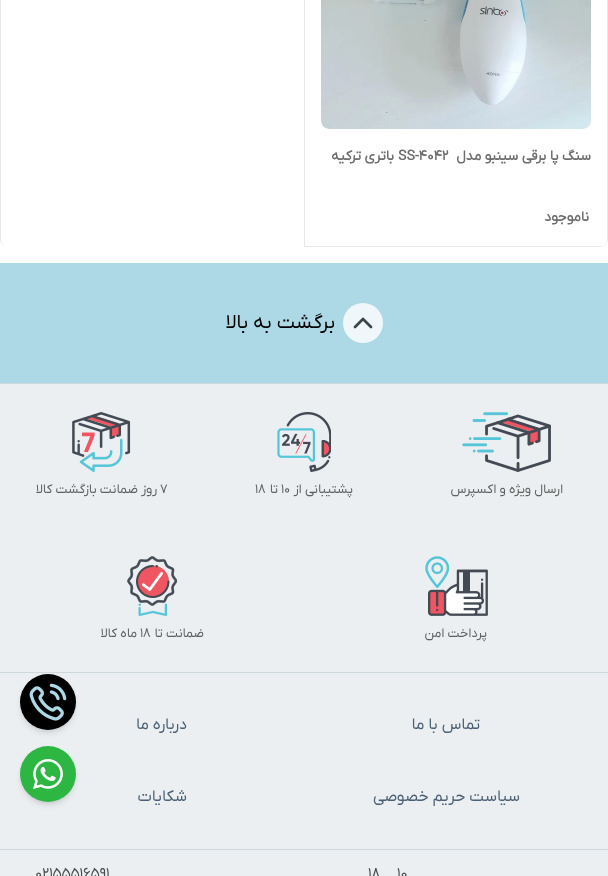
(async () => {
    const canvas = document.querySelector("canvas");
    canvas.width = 608;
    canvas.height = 876;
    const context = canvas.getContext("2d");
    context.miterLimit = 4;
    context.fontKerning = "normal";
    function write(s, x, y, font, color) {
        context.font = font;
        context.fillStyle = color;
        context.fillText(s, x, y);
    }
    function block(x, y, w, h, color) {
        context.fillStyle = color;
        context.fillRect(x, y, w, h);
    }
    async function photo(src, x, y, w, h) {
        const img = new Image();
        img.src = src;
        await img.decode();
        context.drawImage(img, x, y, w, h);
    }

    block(0, 0, 608, 876, "rgb(173, 216, 230)");
    block(0, 0, 608, 263, "rgb(255, 255, 255)");
    context.fillStyle = "rgb(229, 231, 235)";
    context.beginPath();
    context.moveTo(8, -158);
    context.lineTo(600, -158);
    context.bezierCurveTo(604, -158, 608, -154, 608, -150);
    context.lineTo(608, 239);
    context.bezierCurveTo(608, 243, 604, 247, 600, 247);
    context.lineTo(8, 247);
    context.bezierCurveTo(4, 247, 0, 243, 0, 239);
    context.lineTo(0, -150);
    context.bezierCurveTo(0, -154, 4, -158, 8, -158);
    context.closePath();
    context.moveTo(8, -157);
    context.lineTo(600, -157);
    context.bezierCurveTo(604, -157, 607, -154, 607, -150);
    context.lineTo(607, 239);
    context.bezierCurveTo(607, 243, 604, 247, 600, 247);
    context.lineTo(8, 247);
    context.bezierCurveTo(4, 247, 1, 243, 1, 239);
    context.lineTo(1, -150);
    context.bezierCurveTo(1, -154, 4, -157, 8, -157);
    context.closePath();
    context.fill("evenodd");
    context.fillStyle = "rgb(255, 255, 255)";
    context.beginPath();
    context.moveTo(305, -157);
    context.lineTo(305, 246);
    context.lineTo(603, 246);
    context.bezierCurveTo(606, 245, 607, 242, 607, 239);
    context.lineTo(607, -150);
    context.bezierCurveTo(607, -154, 604, -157, 600, -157);
    context.closePath();
    context.fill();
    context.fillStyle = "rgb(229, 231, 235)";
    context.beginPath();
    context.moveTo(304, 246);
    context.lineTo(304, 247);
    context.lineTo(600, 247);
    context.lineTo(603, 246);
    context.closePath();
    context.fill();
    block(304, 0, 1, 247, "rgb(229, 231, 235)");
    await photo("media/1.png", 321, 0, 270, 129);
    context.direction = "rtl";
    write("سنگ پا برقی سینبو مدل", 591, 160, "bold 14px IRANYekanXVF", "rgb(110, 110, 110)");
    context.direction = "ltr";
    write("SS-4042", 398, 160, "bold 14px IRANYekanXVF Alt", "rgb(110, 110, 110)");
    context.direction = "rtl";
    write("باتری ترکیه", 394, 160, "bold 14px IRANYekanXVF", "rgb(110, 110, 110)");
    write("ناموجود", 589, 221, "bold 14px IRANYekanXVF", "rgb(110, 110, 110)");
    context.fillStyle = "rgb(239, 247, 250)";
    context.beginPath();
    context.arc(363, 323, 20, 0, Math.PI * 2);
    context.fill();
    context.beginPath();
    context.moveTo(371, 327);
    context.lineTo(363, 319);
    context.lineTo(355, 327);
    context.strokeStyle = "rgb(60, 69, 72)";
    context.lineWidth = 2.7;
    context.lineCap = "round";
    context.lineJoin = "round";
    context.stroke();
    write("برگشت به بالا", 335, 328, "20px IRANYekanXVF", "rgb(0, 0, 0)");
    block(0, 384, 608, 492, "rgb(236, 239, 241)");
    block(0, 383, 608, 1, "rgb(207, 216, 220)");
    await photo("media/2.png", 462, 412, 89, 60);
    write("ارسال ویژه و اکسپرس", 563, 493, "13px IRANYekanXVF", "rgb(96, 96, 96)");
    await photo("media/3.png", 277, 412, 54, 60);
    write("پشتیبانی از", 353, 493, "13px IRANYekanXVF", "rgb(96, 96, 96)");
    context.direction = "ltr";
    write("۱۰", 281, 493, "13px IRANYekanXVF", "rgb(96, 96, 96)");
    context.direction = "rtl";
    write("تا", 278, 493, "13px IRANYekanXVF", "rgb(96, 96, 96)");
    context.direction = "ltr";
    write("۱۸", 255, 493, "13px IRANYekanXVF", "rgb(96, 96, 96)");
    await photo("media/4.png", 72, 412, 59, 60);
    write("۷", 160, 493, "13px IRANYekanXVF", "rgb(96, 96, 96)");
    context.direction = "rtl";
    write("روز ضمانت بازگشت کالا", 157, 493, "13px IRANYekanXVF", "rgb(96, 96, 96)");
    await photo("media/5.png", 425, 556, 63, 60);
    write("پرداخت امن", 487, 637, "13px IRANYekanXVF", "rgb(96, 96, 96)");
    await photo("media/6.png", 127, 556, 50, 60);
    write("ضمانت تا", 204, 637, "13px IRANYekanXVF", "rgb(96, 96, 96)");
    context.direction = "ltr";
    write("۱۸", 140, 637, "13px IRANYekanXVF", "rgb(96, 96, 96)");
    context.direction = "rtl";
    write("ماه کالا", 137, 637, "13px IRANYekanXVF", "rgb(96, 96, 96)");
    block(0, 672, 608, 1, "rgb(207, 216, 220)");
    write("تماس با ما", 480, 729, "16px IRANYekanXVF", "rgb(74, 95, 115)");
    write("درباره ما", 187, 729, "16px IRANYekanXVF", "rgb(74, 95, 115)");
    write("سیاست حریم خصوصی", 520, 801, "16px IRANYekanXVF", "rgb(74, 95, 115)");
    write("شکایات", 187, 801, "16px IRANYekanXVF", "rgb(74, 95, 115)");
    block(0, 849, 608, 1, "rgb(207, 216, 220)");
    context.direction = "ltr";
    write("۱۰", 397, 878, "15px IRANYekanXVF", "rgb(75, 75, 75)");
    write("۱۸", 368, 878, "15px IRANYekanXVF", "rgb(75, 75, 75)");
    write("02155516591", 35, 878, "15px IRANYekanXVF Alt", "rgb(75, 75, 75)");
    context.fillStyle = "rgba(0, 0, 0, 0.1)";
    context.filter = "blur(2px)";
    context.beginPath();
    context.roundRect(22, 678, 52, 52, 26);
    context.fill();
    context.filter = "none";
    context.filter = "blur(3px)";
    context.beginPath();
    context.roundRect(21, 679, 54, 54, 27);
    context.fill();
    context.filter = "none";
    context.fillStyle = "rgb(0, 0, 0)";
    context.beginPath();
    context.arc(48, 702, 28, 0, Math.PI * 2);
    context.fill();
    await photo("media/7.png", 29, 683, 38, 38);
    context.fillStyle = "rgba(0, 0, 0, 0.1)";
    context.filter = "blur(2px)";
    context.beginPath();
    context.roundRect(22, 750, 52, 52, 26);
    context.fill();
    context.filter = "none";
    context.filter = "blur(3px)";
    context.beginPath();
    context.roundRect(21, 751, 54, 54, 27);
    context.fill();
    context.filter = "none";
    context.fillStyle = "rgb(45, 183, 66)";
    context.beginPath();
    context.arc(48, 774, 28, 0, Math.PI * 2);
    context.fill();
    await photo("media/8.png", 33, 759, 30, 30);
})();
